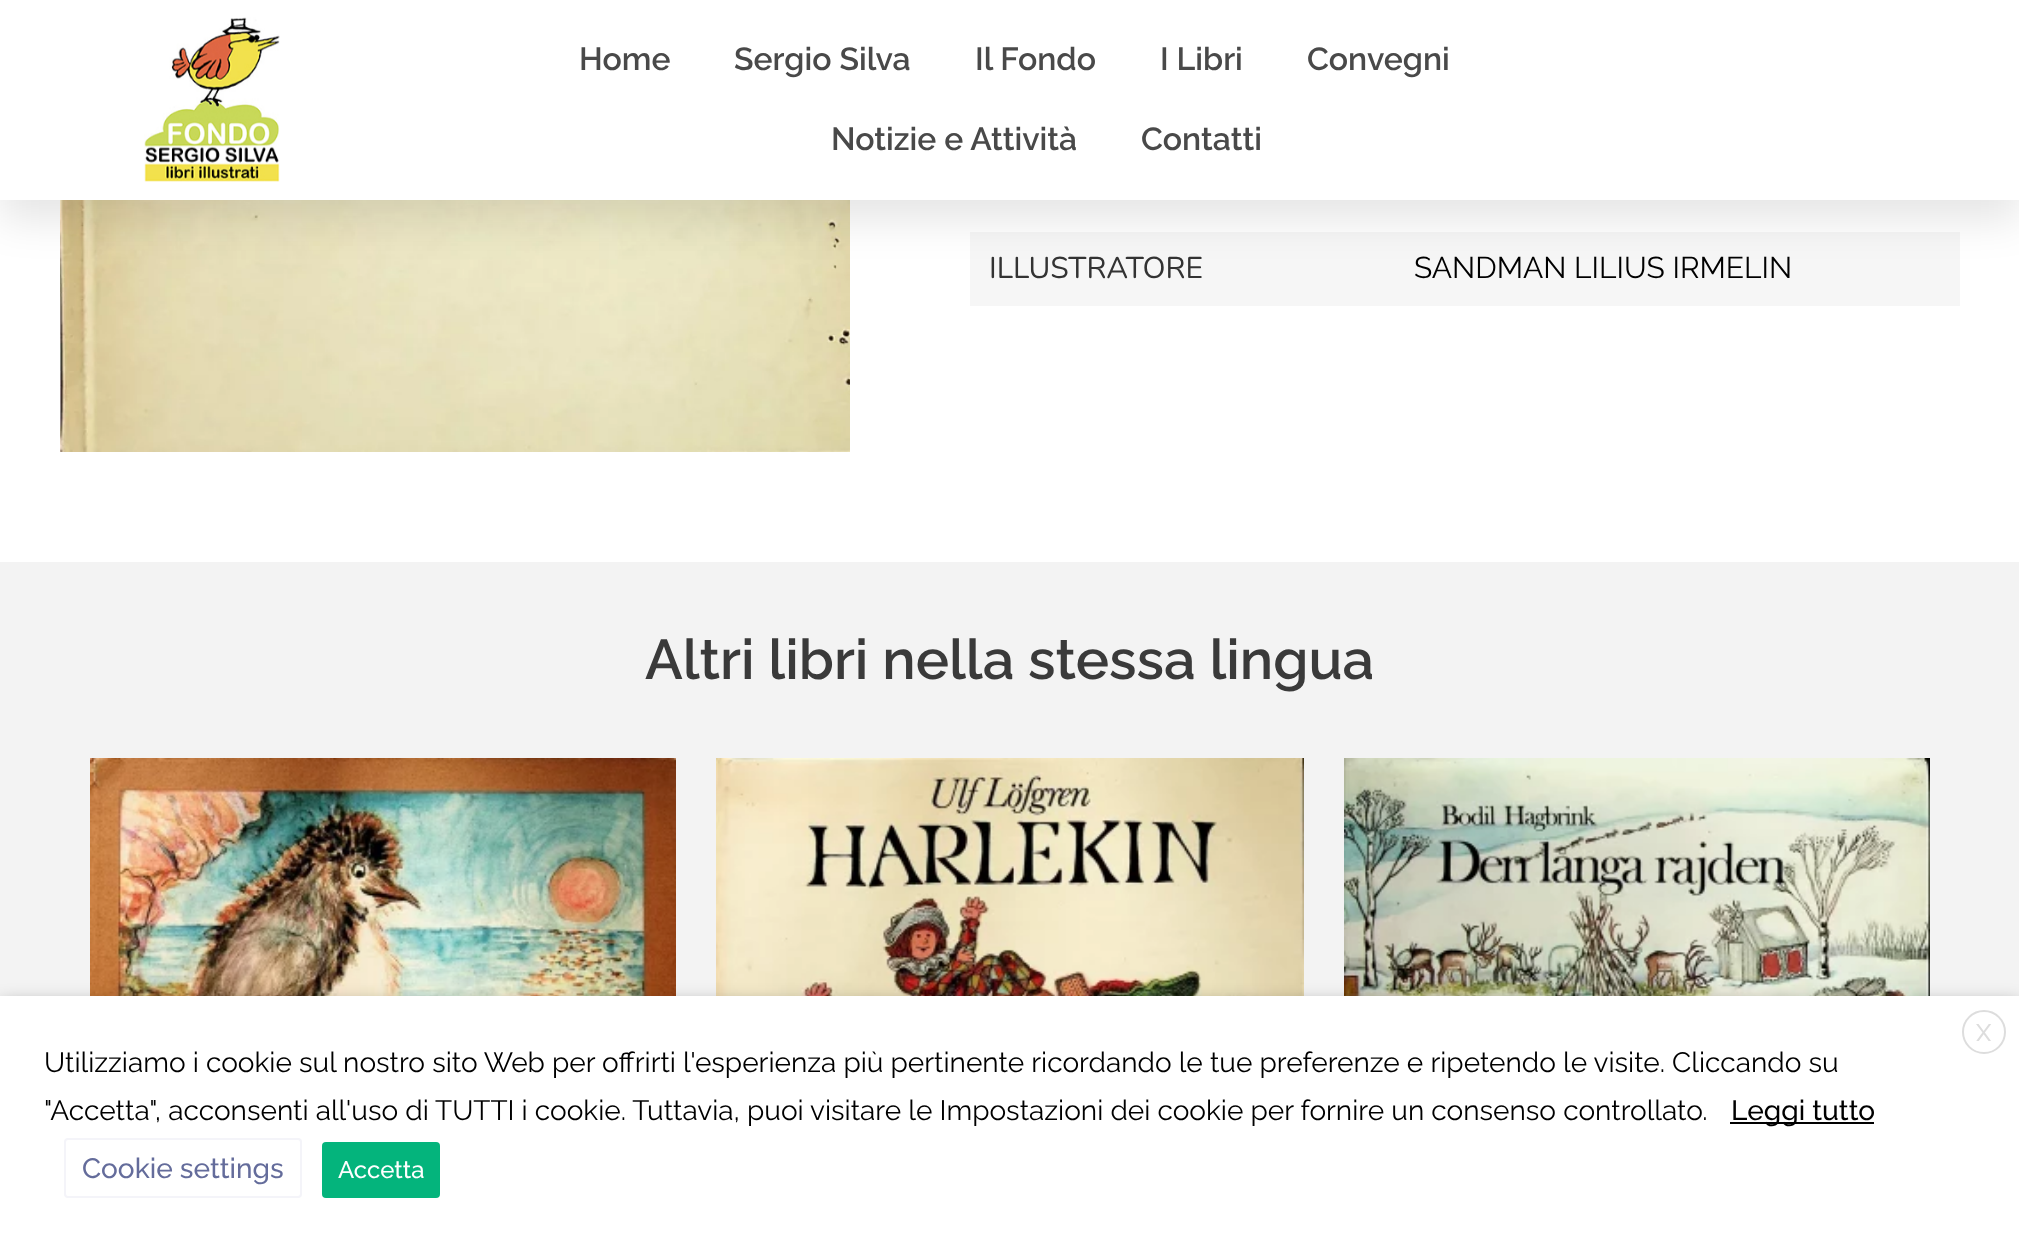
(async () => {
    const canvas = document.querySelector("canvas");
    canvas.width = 2019;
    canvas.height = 1241;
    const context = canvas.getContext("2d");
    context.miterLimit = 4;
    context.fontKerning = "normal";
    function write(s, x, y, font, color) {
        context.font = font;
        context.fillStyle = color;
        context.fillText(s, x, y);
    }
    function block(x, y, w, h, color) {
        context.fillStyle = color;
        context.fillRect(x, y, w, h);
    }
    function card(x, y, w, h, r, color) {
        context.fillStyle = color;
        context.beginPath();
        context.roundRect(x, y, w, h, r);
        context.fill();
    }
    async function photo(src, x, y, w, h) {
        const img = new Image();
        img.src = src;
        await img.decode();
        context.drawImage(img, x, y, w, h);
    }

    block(0, 0, 2019, 1241, "rgb(255, 255, 255)");
    await photo("media/2.png", 60, 200, 790, 252);
    block(970, 232, 990, 74, "rgb(246, 246, 246)");
    context.fillStyle = "rgba(0, 0, 0, 0.1)";
    context.filter = "blur(20px)";
    context.beginPath();
    context.rect(0, 20, 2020, 200);
    context.fill();
    context.filter = "none";
    block(0, 0, 2019, 200, "rgb(255, 255, 255)");
    await photo("media/1.png", 144, 17, 136, 165);
    write("Home", 579, 70, "600 32px Raleway", "rgb(73, 73, 73)");
    write("Sergio Silva", 734, 70, "600 32px Raleway", "rgb(73, 73, 73)");
    write("Il Fondo", 975, 70, "600 32px Raleway", "rgb(73, 73, 73)");
    write("I Libri", 1160, 70, "600 32px Raleway", "rgb(73, 73, 73)");
    write("Convegni", 1307, 70, "600 32px Raleway", "rgb(73, 73, 73)");
    write("Notizie e Attività", 831, 150, "600 32px Raleway", "rgb(73, 73, 73)");
    write("Contatti", 1141, 150, "600 32px Raleway", "rgb(73, 73, 73)");
    write("ILLUSTRATORE", 989, 278, "200 30px Nunito", "rgb(51, 51, 51)");
    write("SANDMAN LILIUS IRMELIN", 1414, 278, "30px Raleway", "rgb(0, 0, 0)");
    block(0, 562, 2019, 434, "rgb(243, 243, 243)");
    write("Altri libri nella stessa lingua", 645, 679, "600 56px Raleway", "rgb(58, 58, 58)");
    await photo("media/3.png", 90, 758, 586, 238);
    await photo("media/4.png", 716, 758, 588, 238);
    await photo("media/5.png", 1344, 758, 586, 238);
    context.fillStyle = "rgba(0, 0, 0, 0.5)";
    context.filter = "blur(10px)";
    context.beginPath();
    context.rect(0, 1006, 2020, 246);
    context.fill();
    context.filter = "none";
    block(0, 996, 2019, 245, "rgb(255, 255, 255)");
    context.beginPath();
    context.arc(1984, 1032, 21, 0, Math.PI * 2);
    context.strokeStyle = "rgb(221, 221, 221)";
    context.lineWidth = 2;
    context.stroke();
    write("X", 1976, 1041, "500 24px Raleway", "rgb(221, 221, 221)");
    write("Utilizziamo i cookie sul nostro sito Web per offrirti l'esperienza più pertinente ricordando le tue preferenze e ripetendo le visite. Cliccando su", 44, 1072, "28px Raleway", "rgb(0, 0, 0)");
    write("\"Accetta\", acconsenti all'uso di TUTTI i cookie. Tuttavia, puoi visitare le Impostazioni dei cookie per fornire un consenso controllato.", 44, 1120, "28px Raleway", "rgb(0, 0, 0)");
    block(1730, 1122, 144, 2, "rgb(0, 0, 0)");
    write("Leggi tutto", 1731, 1120, "500 28px Raleway", "rgb(0, 0, 0)");
    context.beginPath();
    context.roundRect(65, 1139, 236, 58, 3);
    context.strokeStyle = "rgb(244, 244, 249)";
    context.stroke();
    write("Cookie settings", 82, 1178, "500 28px Raleway", "rgb(100, 108, 155)");
    card(322, 1142, 118, 56, 4, "rgb(4, 180, 124)");
    write("Accetta", 338, 1178, "500 24px Raleway", "rgb(255, 255, 255)");
})();
